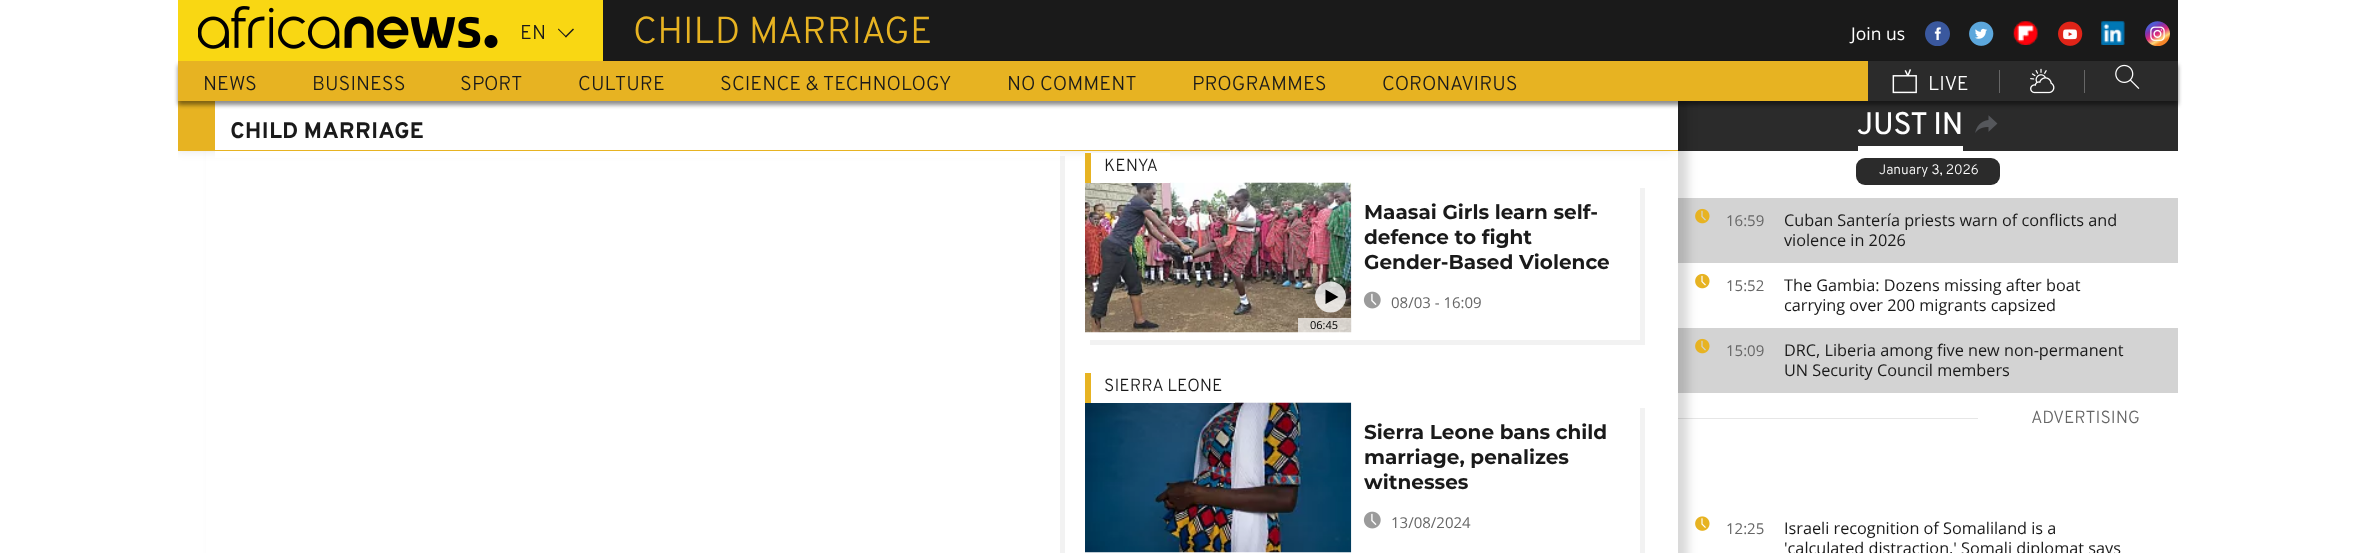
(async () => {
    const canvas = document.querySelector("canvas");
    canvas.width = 2355;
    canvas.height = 553;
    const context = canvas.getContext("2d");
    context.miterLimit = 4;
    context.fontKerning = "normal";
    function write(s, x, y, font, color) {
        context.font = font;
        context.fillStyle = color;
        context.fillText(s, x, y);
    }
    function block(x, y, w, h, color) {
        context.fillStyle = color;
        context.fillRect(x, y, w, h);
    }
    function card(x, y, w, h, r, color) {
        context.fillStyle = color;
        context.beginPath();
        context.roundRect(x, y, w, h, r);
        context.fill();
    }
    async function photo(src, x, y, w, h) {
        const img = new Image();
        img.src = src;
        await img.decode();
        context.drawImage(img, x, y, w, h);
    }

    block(0, 0, 2355, 553, "rgb(255, 255, 255)");
    block(603, 0, 1575, 61, "rgb(26, 26, 26)");
    block(1678, 101, 500, 50, "rgb(43, 43, 43)");
    block(1678, 198, 500, 65, "rgb(211, 211, 211)");
    await photo("media/15.png", 1695, 208, 15, 16);
    await photo("media/16.png", 1695, 273, 15, 16);
    block(1678, 328, 500, 65, "rgb(211, 211, 211)");
    await photo("media/15.png", 1695, 338, 15, 16);
    block(1678, 418, 300, 1, "rgb(230, 230, 230)");
    await photo("media/17.png", 1695, 516, 15, 15);
    context.fillStyle = "rgba(0, 0, 0, 0.15)";
    context.filter = "blur(5px)";
    context.beginPath();
    context.rect(213, 99, 1475, 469);
    context.fill();
    context.filter = "none";
    block(206, 151, 1472, 402, "rgb(255, 255, 255)");
    context.save();
    context.beginPath();
    context.rect(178, 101, 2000, 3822);
    context.clip();
    context.fillStyle = "rgba(0, 0, 0, 0.15)";
    context.filter = "blur(6px)";
    context.beginPath();
    context.rect(175, 99, 1500, 50);
    context.fill();
    context.filter = "none";
    context.restore();
    block(215, 101, 1463, 49, "rgb(255, 255, 255)");
    block(178, 101, 37, 49, "rgb(231, 179, 34)");
    context.fillStyle = "rgba(0, 0, 0, 0.45)";
    context.filter = "blur(2px)";
    context.beginPath();
    context.rect(178, 65, 2000, 40);
    context.fill();
    context.filter = "none";
    block(178, 0, 425, 61, "rgb(249, 215, 19)");
    await photo("media/1.png", 198, 6, 300, 43);
    write("EN", 520, 39, "300 20px Overpass", "rgb(26, 26, 26)");
    context.beginPath();
    context.moveTo(565, 36.5);
    context.lineTo(573, 28.5);
    context.lineTo(574, 29.5);
    context.lineTo(566, 37.5);
    context.closePath();
    context.fill();
    context.beginPath();
    context.moveTo(558, 29.5);
    context.lineTo(558.5, 28.5);
    context.lineTo(566.5, 36.5);
    context.lineTo(566, 37.5);
    context.closePath();
    context.fill();
    write("CHILD MARRIAGE", 633, 43, "300 37.5px Overpass", "rgb(231, 179, 34)");
    write("Join us", 1851, 40, "17.5px Open Sans", "rgb(255, 255, 255)");
    await photo("media/2.png", 1925, 21, 25, 25);
    await photo("media/3.png", 1969, 21, 25, 25);
    await photo("media/4.png", 2013, 21, 25, 24);
    await photo("media/5.png", 2058, 21, 25, 25);
    await photo("media/6.png", 2101, 21, 24, 24);
    await photo("media/7.png", 2145, 21, 25, 25);
    block(178, 61, 1690, 40, "rgb(231, 179, 34)");
    write("NEWS", 203, 90, "300 20px Overpass", "rgb(26, 26, 26)");
    write("BUSINESS", 312, 90, "300 20px Overpass", "rgb(26, 26, 26)");
    write("SPORT", 460, 90, "300 20px Overpass", "rgb(26, 26, 26)");
    write("CULTURE", 578, 90, "300 20px Overpass", "rgb(26, 26, 26)");
    write("SCIENCE & TECHNOLOGY", 720, 90, "300 20px Overpass", "rgb(26, 26, 26)");
    write("NO COMMENT", 1007, 90, "300 20px Overpass", "rgb(26, 26, 26)");
    write("PROGRAMMES", 1192, 90, "300 20px Overpass", "rgb(26, 26, 26)");
    write("CORONAVIRUS", 1382, 90, "300 20px Overpass", "rgb(26, 26, 26)");
    block(1868, 61, 310, 40, "rgb(43, 43, 43)");
    await photo("media/8.png", 1892, 69, 25, 25);
    write("LIVE", 1928, 90, "300 20px Overpass", "rgb(255, 255, 255)");
    block(1999, 70, 1, 23, "rgb(102, 102, 102)");
    await photo("media/9.png", 2030, 68, 25, 26);
    block(2084, 70, 1, 23, "rgb(102, 102, 102)");
    await photo("media/10.png", 2115, 64, 25, 25);
    block(178, 150, 1500, 1, "rgb(231, 179, 34)");
    write("CHILD MARRIAGE", 230, 138, "bold 22.5px 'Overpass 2'", "rgb(26, 26, 26)");
    context.fillStyle = "rgba(0, 0, 0, 0.05)";
    context.beginPath();
    context.moveTo(220, 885);
    context.lineTo(220, 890);
    context.lineTo(1065, 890);
    context.lineTo(1065, 156);
    context.lineTo(1060, 156);
    context.lineTo(1060, 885);
    context.closePath();
    context.fill();
    block(215, 151, 845, 7, "rgb(255, 255, 255)");
    context.fillStyle = "rgb(242, 242, 242)";
    context.beginPath();
    context.moveTo(1090, 340);
    context.lineTo(1090, 345);
    context.lineTo(1645, 345);
    context.lineTo(1645, 188);
    context.lineTo(1640, 188);
    context.lineTo(1640, 340);
    context.closePath();
    context.fill();
    await photo("media/12.png", 1085, 182, 267, 151);
    block(1091, 153, 79, 30, "rgb(255, 255, 255)");
    block(1085, 153, 6, 30, "rgb(231, 179, 34)");
    write("KENYA", 1104, 171, "300 17.5px Overpass", "rgb(26, 26, 26)");
    write("Maasai Girls learn self-", 1364, 219, "100 20px Montserrat", "rgb(26, 26, 26)");
    write("defence to fight", 1364, 244, "100 20px Montserrat", "rgb(26, 26, 26)");
    write("Gender-Based Violence", 1364, 269, "100 20px Montserrat", "rgb(26, 26, 26)");
    await photo("media/11.png", 1363, 291, 18, 18);
    write("08/03 - 16:09", 1391, 308, "15px Open Sans", "rgb(102, 102, 102)");
    context.fillStyle = "rgba(255, 255, 255, 0.8)";
    context.beginPath();
    context.arc(1330.5, 297, 15.5, 0, Math.PI * 2);
    context.fill();
    context.fillStyle = "rgb(0, 0, 0)";
    context.beginPath();
    context.moveTo(1338.5, 297);
    context.lineTo(1325.5, 304);
    context.lineTo(1325.5, 289.5);
    context.closePath();
    context.fill();
    block(1298, 318, 53, 15, "rgba(255, 255, 255, 0.7)");
    write("06:45", 1310, 329, "11px Open Sans", "rgb(0, 0, 0)");
    context.fillStyle = "rgb(242, 242, 242)";
    context.beginPath();
    context.moveTo(1090, 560);
    context.lineTo(1090, 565);
    context.lineTo(1645, 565);
    context.lineTo(1645, 408);
    context.lineTo(1640, 408);
    context.lineTo(1640, 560);
    context.closePath();
    context.fill();
    await photo("media/13.png", 1085, 402, 267, 151);
    block(1091, 402, 144, 1, "rgb(255, 255, 255)");
    block(1085, 373, 6, 30, "rgb(231, 179, 34)");
    write("SIERRA LEONE", 1104, 391, "300 17.5px Overpass", "rgb(26, 26, 26)");
    write("Sierra Leone bans child", 1364, 439, "100 20px Montserrat", "rgb(26, 26, 26)");
    write("marriage, penalizes", 1364, 464, "100 20px Montserrat", "rgb(26, 26, 26)");
    write("witnesses", 1364, 489, "100 20px Montserrat", "rgb(26, 26, 26)");
    await photo("media/11.png", 1363, 511, 18, 18);
    write("13/08/2024", 1391, 528, "15px Open Sans", "rgb(102, 102, 102)");
    write("JUST IN", 1857, 134, "bold 30px Overpass", "rgb(255, 255, 255)");
    block(1858, 146, 105, 5, "rgb(255, 255, 255)");
    await photo("media/14.png", 1975, 115, 23, 18);
    card(1856, 158, 144, 27, 9, "rgb(43, 43, 43)");
    write("January 3, 2026", 1879, 174, "300 13.75px Overpass", "rgb(255, 255, 255)");
    write("16:59", 1726, 226, "15px Open Sans", "rgb(102, 102, 102)");
    write("Cuban Santería priests warn of conflicts and", 1784, 226, "16.25px Open Sans", "rgb(26, 26, 26)");
    write("violence in 2026", 1784, 246, "16.25px Open Sans", "rgb(26, 26, 26)");
    write("15:52", 1726, 291, "15px Open Sans", "rgb(102, 102, 102)");
    write("The Gambia: Dozens missing after boat", 1784, 291, "16.25px Open Sans", "rgb(26, 26, 26)");
    write("carrying over 200 migrants capsized", 1784, 311, "16.25px Open Sans", "rgb(26, 26, 26)");
    write("15:09", 1726, 356, "15px Open Sans", "rgb(102, 102, 102)");
    write("DRC, Liberia among five new non-permanent", 1784, 356, "16.25px Open Sans", "rgb(26, 26, 26)");
    write("UN Security Council members", 1784, 376, "16.25px Open Sans", "rgb(26, 26, 26)");
    write("ADVERTISING", 2031, 423, "300 17.5px Overpass", "rgb(102, 102, 102)");
    write("12:25", 1726, 534, "15px Open Sans", "rgb(102, 102, 102)");
    write("Israeli recognition of Somaliland is a", 1784, 534, "16.25px Open Sans", "rgb(26, 26, 26)");
    write("'calculated distraction,' Somali diplomat says", 1784, 554, "16.25px Open Sans", "rgb(26, 26, 26)");
})();
